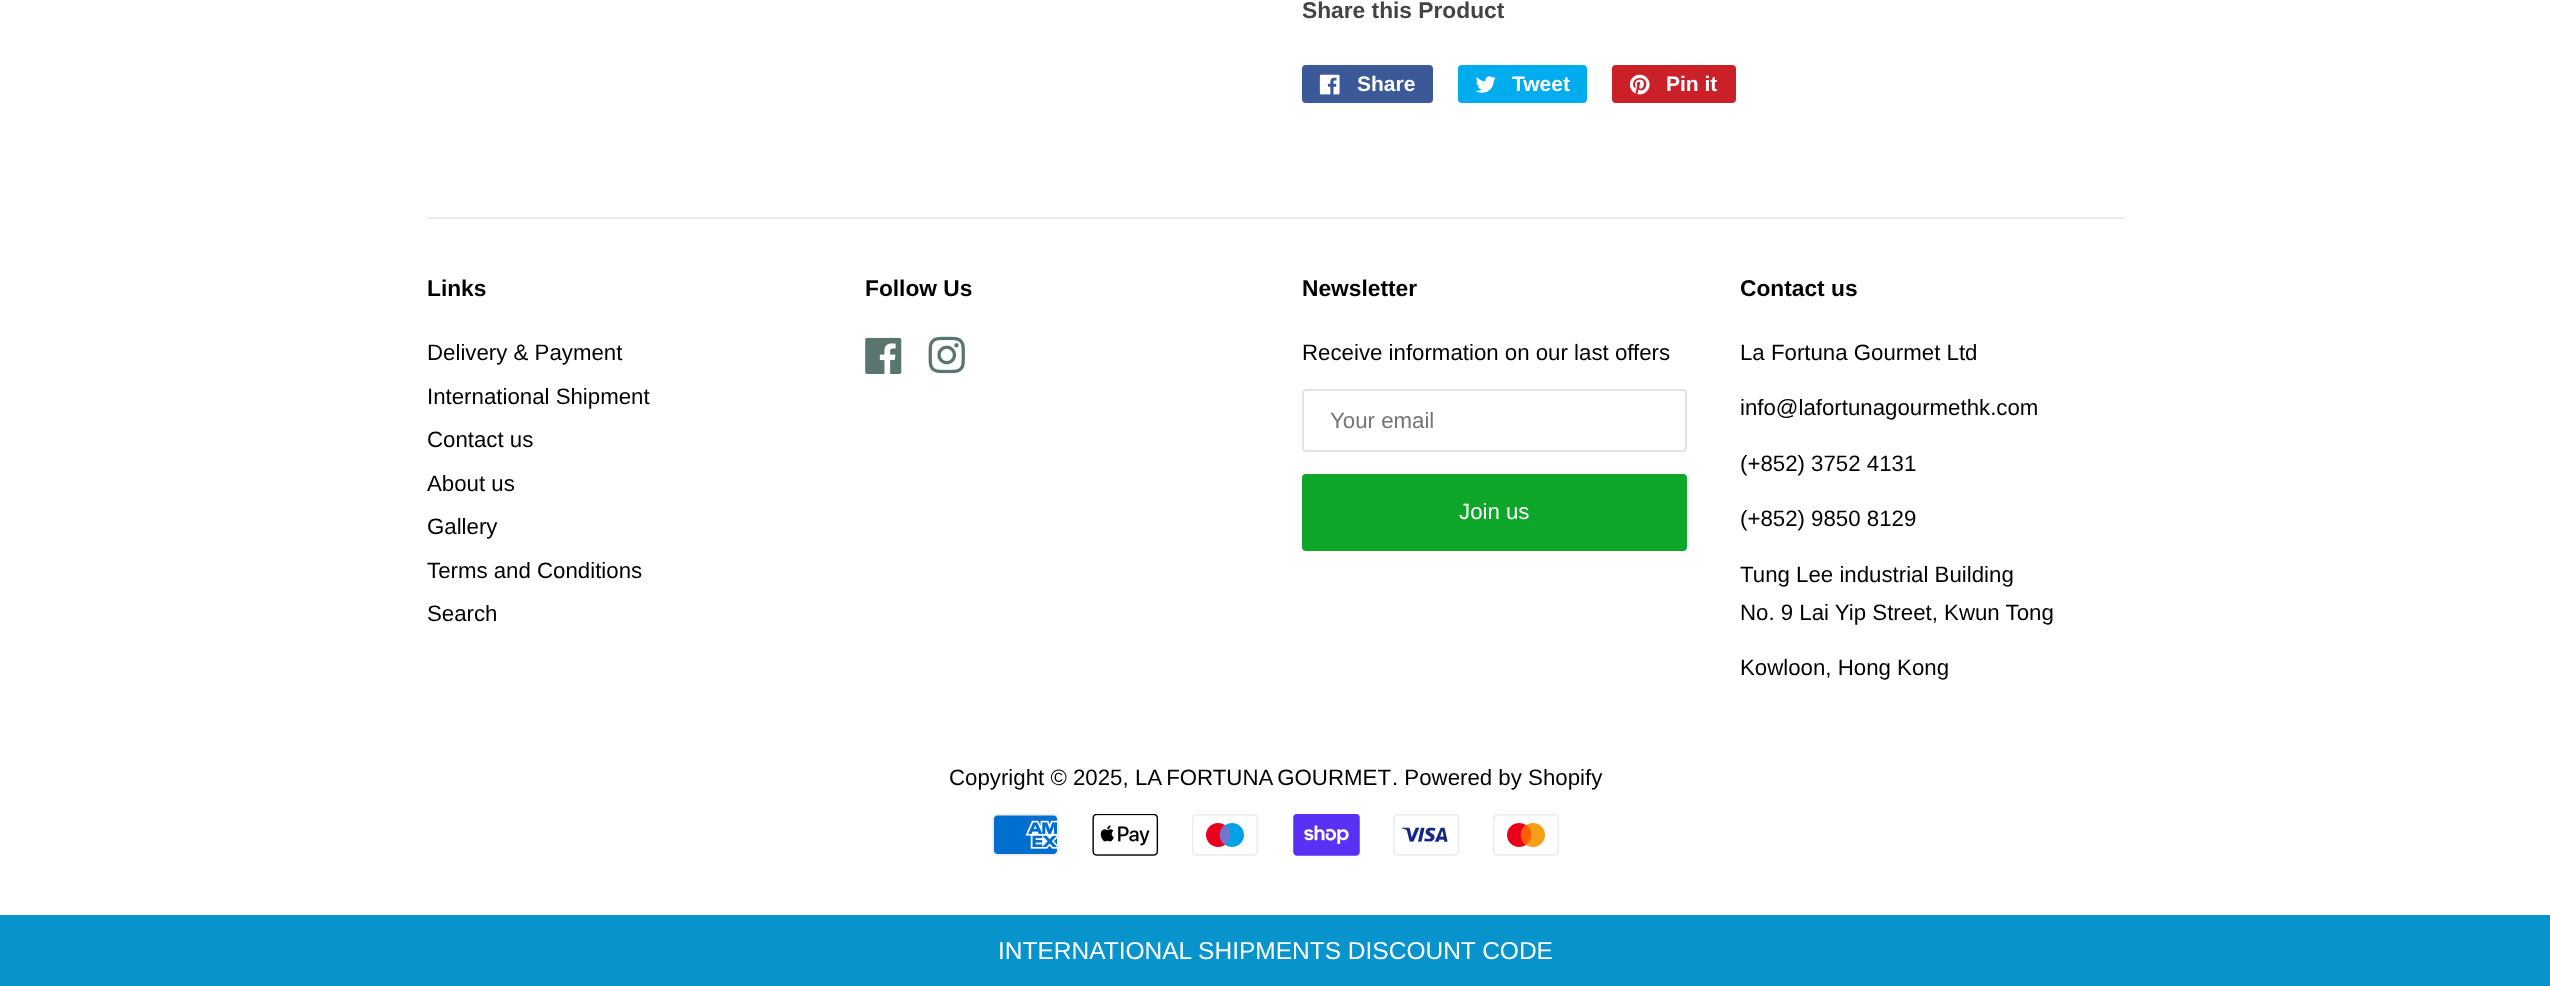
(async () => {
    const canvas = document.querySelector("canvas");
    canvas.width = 2550;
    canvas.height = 986;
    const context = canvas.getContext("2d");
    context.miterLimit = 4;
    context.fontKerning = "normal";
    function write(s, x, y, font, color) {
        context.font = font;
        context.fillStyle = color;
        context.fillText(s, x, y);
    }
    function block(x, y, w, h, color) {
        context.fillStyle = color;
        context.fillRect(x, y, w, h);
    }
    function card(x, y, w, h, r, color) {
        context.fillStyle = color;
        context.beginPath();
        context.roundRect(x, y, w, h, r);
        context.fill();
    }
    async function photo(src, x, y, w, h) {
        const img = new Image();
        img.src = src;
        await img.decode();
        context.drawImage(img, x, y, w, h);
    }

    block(0, 0, 2550, 986, "rgb(255, 255, 255)");
    write("Share this Product", 1302, 18, "bold 22.75px Liberation Sans", "rgb(68, 68, 68)");
    card(1302, 65, 131, 38, 4, "rgb(59, 89, 152)");
    await photo("media/1.png", 1319, 74, 21, 21);
    write("Share", 1357, 91, "bold 21px Liberation Sans", "rgb(255, 255, 255)");
    card(1458, 65, 129, 38, 4, "rgb(0, 172, 237)");
    await photo("media/2.png", 1476, 76, 20, 17);
    write("Tweet", 1512, 91, "bold 21px Liberation Sans", "rgb(255, 255, 255)");
    card(1612, 65, 124, 38, 4, "rgb(203, 32, 39)");
    await photo("media/3.png", 1629, 74, 21, 21);
    write("Pin it", 1666, 91, "bold 21px Liberation Sans", "rgb(255, 255, 255)");
    block(427, 217, 1698, 2, "rgb(235, 235, 235)");
    write("Links", 427, 296, "bold 22.75px Liberation Sans", "rgb(0, 0, 0)");
    write("Delivery & Payment", 427, 360, "22.25px Liberation Sans", "rgb(0, 0, 0)");
    write("International Shipment", 427, 404, "22.25px Liberation Sans", "rgb(0, 0, 0)");
    write("Contact us", 427, 447, "22.25px Liberation Sans", "rgb(0, 0, 0)");
    write("About us", 427, 491, "22.25px Liberation Sans", "rgb(0, 0, 0)");
    write("Gallery", 427, 534, "22.25px Liberation Sans", "rgb(0, 0, 0)");
    write("Terms and Conditions", 427, 578, "22.25px Liberation Sans", "rgb(0, 0, 0)");
    write("Search", 427, 621, "22.25px Liberation Sans", "rgb(0, 0, 0)");
    write("Follow Us", 865, 296, "bold 22.75px Liberation Sans", "rgb(0, 0, 0)");
    await photo("media/4.png", 865, 337, 37, 37);
    await photo("media/5.png", 928, 336, 37, 38);
    write("Newsletter", 1302, 296, "bold 22.75px Liberation Sans", "rgb(0, 0, 0)");
    write("Receive information on our last offers", 1302, 360, "22.25px Liberation Sans", "rgb(0, 0, 0)");
    context.beginPath();
    context.roundRect(1303, 390, 383, 61, 3);
    context.strokeStyle = "rgb(227, 227, 227)";
    context.lineWidth = 2;
    context.stroke();
    write("Your email", 1330, 428, "22.25px Liberation Sans", "rgb(117, 117, 117)");
    card(1302, 474, 385, 77, 4, "rgb(14, 167, 42)");
    write("Join us", 1459, 519, "22.25px Liberation Sans", "rgb(255, 255, 255)");
    write("Contact us", 1740, 296, "bold 22.75px Liberation Sans", "rgb(0, 0, 0)");
    write("La Fortuna Gourmet Ltd", 1740, 360, "22.25px Liberation Sans", "rgb(0, 0, 0)");
    write("info@lafortunagourmethk.com", 1740, 415, "22.25px Liberation Sans", "rgb(0, 0, 0)");
    write("(+852) 3752 4131", 1740, 471, "22.25px Liberation Sans", "rgb(0, 0, 0)");
    write("(+852) 9850 8129", 1740, 526, "22.25px Liberation Sans", "rgb(0, 0, 0)");
    write("Tung Lee industrial Building", 1740, 582, "22.25px Liberation Sans", "rgb(0, 0, 0)");
    write("No. 9 Lai Yip Street, Kwun Tong", 1740, 620, "22.25px Liberation Sans", "rgb(0, 0, 0)");
    write("Kowloon, Hong Kong", 1740, 675, "22.25px Liberation Sans", "rgb(0, 0, 0)");
    write("Copyright © 2025,", 949, 785, "22.25px Liberation Sans", "rgb(0, 0, 0)");
    context.wordSpacing = "-1px";
    write("LA FORTUNA GOURMET", 1135, 785, "22.25px Liberation Sans", "rgb(0, 0, 0)");
    context.wordSpacing = "0px";
    write(". Powered by Shopify", 1392, 785, "22.25px Liberation Sans", "rgb(0, 0, 0)");
    await photo("media/6.png", 992, 814, 67, 42);
    await photo("media/7.png", 1092, 814, 67, 42);
    await photo("media/8.png", 1192, 814, 66, 42);
    await photo("media/9.png", 1293, 814, 67, 42);
    await photo("media/10.png", 1393, 814, 67, 42);
    await photo("media/11.png", 1493, 814, 66, 42);
    block(0, 915, 2550, 71, "rgb(7, 148, 204)");
    write("INTERNATIONAL SHIPMENTS DISCOUNT CODE", 998, 959, "24.5px Liberation Sans", "rgb(255, 255, 255)");
})();
